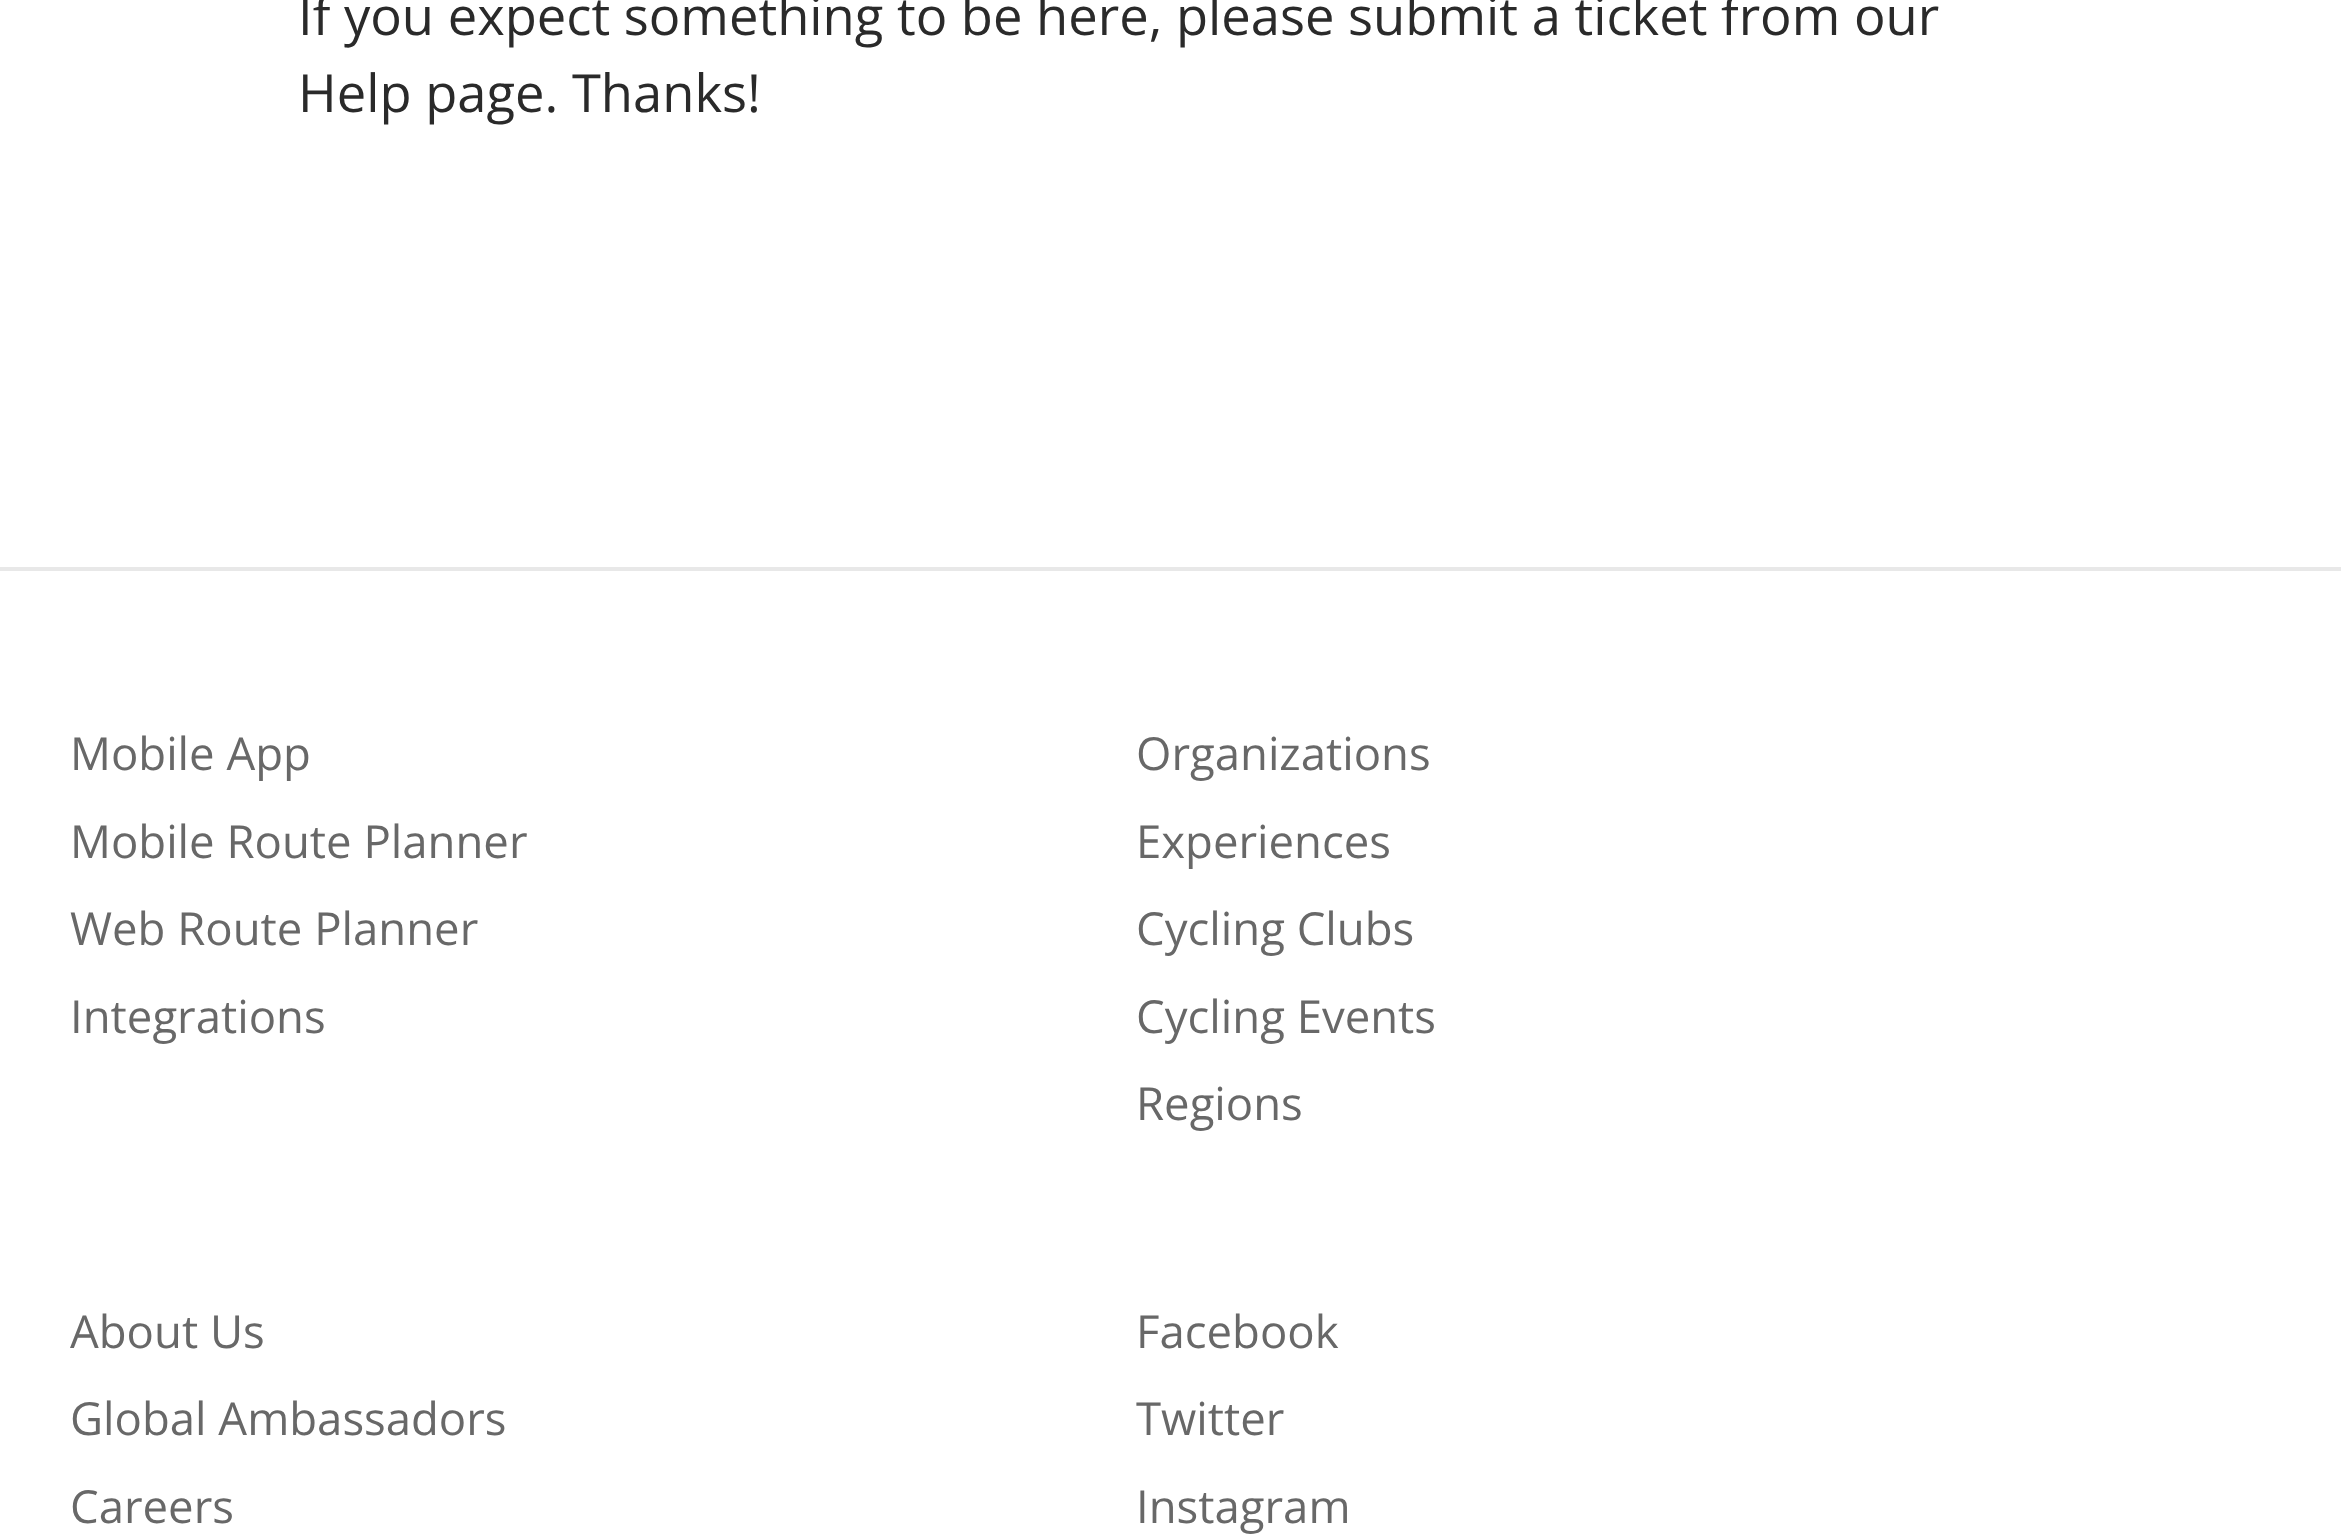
(async () => {
    const canvas = document.querySelector("canvas");
    canvas.width = 2341;
    canvas.height = 1540;
    const context = canvas.getContext("2d");
    context.miterLimit = 4;
    context.fontKerning = "normal";
    function write(s, x, y, font, color) {
        context.font = font;
        context.fillStyle = color;
        context.fillText(s, x, y);
    }
    function block(x, y, w, h, color) {
        context.fillStyle = color;
        context.fillRect(x, y, w, h);
    }

    block(0, 0, 2341, 1540, "rgb(255, 255, 255)");
    write("If you expect something to be here, please submit a ticket from our", 298, 35, "52.5px Open Sans", "rgb(42, 42, 42)");
    write("Help page. Thanks!", 298, 112, "52.5px Open Sans", "rgb(42, 42, 42)");
    block(0, 567, 2341, 4, "rgb(232, 232, 232)");
    write("Mobile App", 70, 770, "45.5px Open Sans", "rgb(104, 104, 104)");
    write("Mobile Route Planner", 70, 858, "45.5px Open Sans", "rgb(104, 104, 104)");
    write("Web Route Planner", 70, 945, "45.5px Open Sans", "rgb(104, 104, 104)");
    write("Integrations", 70, 1033, "45.5px Open Sans", "rgb(104, 104, 104)");
    write("Organizations", 1136, 770, "45.5px Open Sans", "rgb(104, 104, 104)");
    write("Experiences", 1136, 858, "45.5px Open Sans", "rgb(104, 104, 104)");
    write("Cycling Clubs", 1136, 945, "45.5px Open Sans", "rgb(104, 104, 104)");
    write("Cycling Events", 1136, 1033, "45.5px Open Sans", "rgb(104, 104, 104)");
    write("Regions", 1136, 1120, "45.5px Open Sans", "rgb(104, 104, 104)");
    write("About Us", 70, 1348, "45.5px Open Sans", "rgb(104, 104, 104)");
    write("Global Ambassadors", 70, 1435, "45.5px Open Sans", "rgb(104, 104, 104)");
    write("Careers", 70, 1523, "45.5px Open Sans", "rgb(104, 104, 104)");
    write("Facebook", 1136, 1348, "45.5px Open Sans", "rgb(104, 104, 104)");
    write("Twitter", 1136, 1435, "45.5px Open Sans", "rgb(104, 104, 104)");
    write("Instagram", 1136, 1523, "45.5px Open Sans", "rgb(104, 104, 104)");
})();
